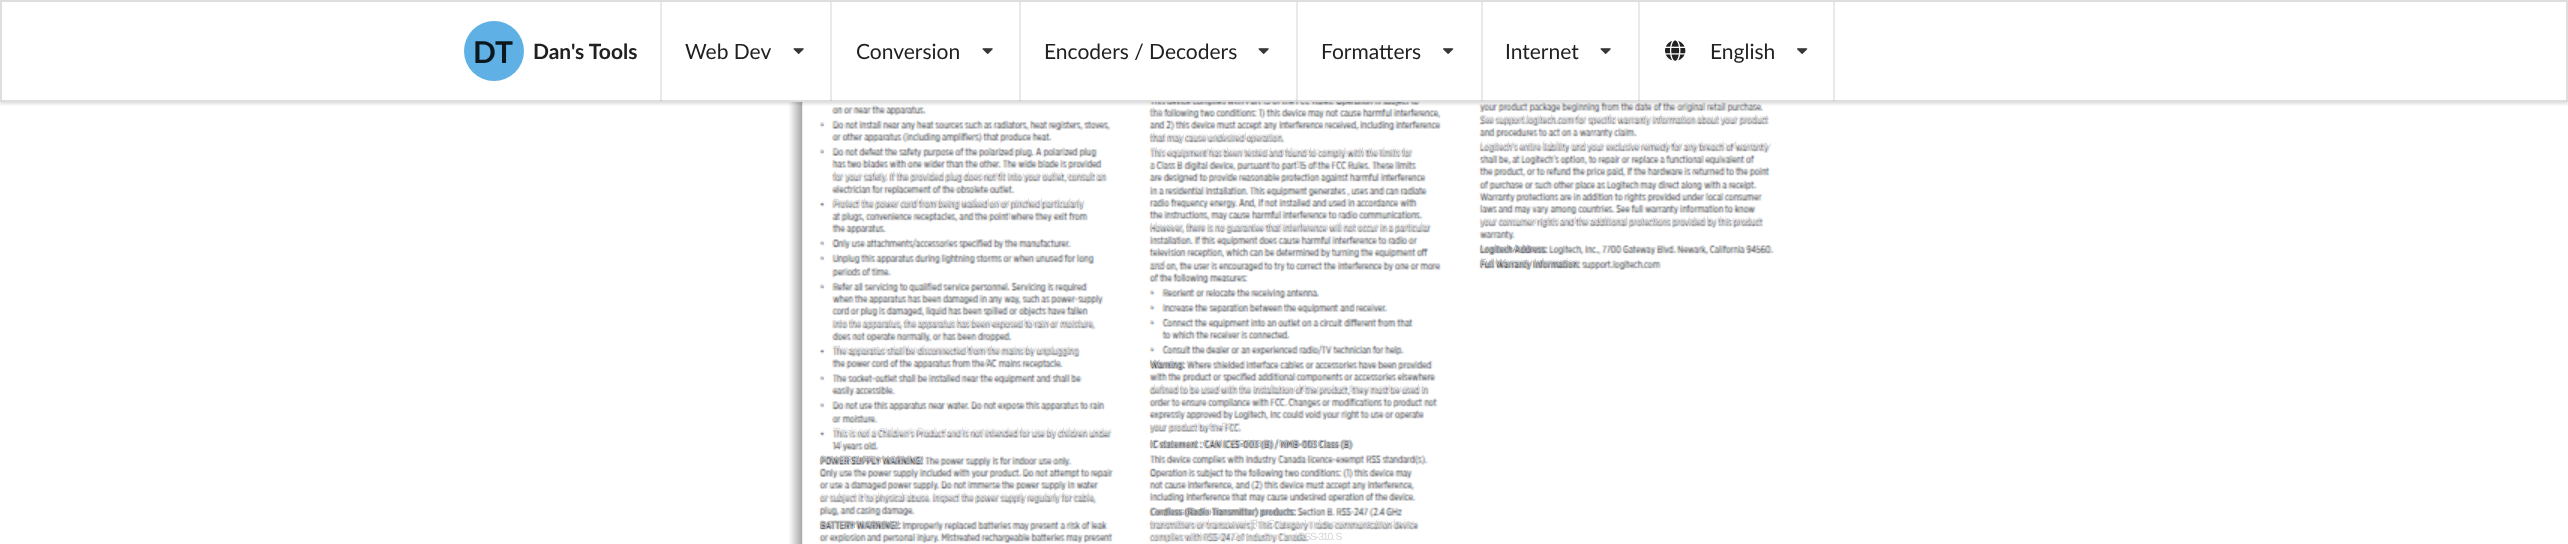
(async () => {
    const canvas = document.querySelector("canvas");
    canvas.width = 2568;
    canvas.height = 544;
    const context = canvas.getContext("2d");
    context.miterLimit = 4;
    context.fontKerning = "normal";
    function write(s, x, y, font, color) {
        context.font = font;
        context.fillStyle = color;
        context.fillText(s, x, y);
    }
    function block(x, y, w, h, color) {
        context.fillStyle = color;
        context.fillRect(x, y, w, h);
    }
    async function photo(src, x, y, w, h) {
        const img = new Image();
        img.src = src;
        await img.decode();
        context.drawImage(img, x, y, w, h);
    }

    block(0, 0, 2568, 544, "rgb(255, 255, 255)");
    await photo("media/4.png", 789, 102, 14, 442);
    await photo("media/5.png", 802, 102, 977, 442);
    context.fillStyle = "rgba(34, 36, 38, 0.15)";
    context.filter = "blur(1.5px)";
    context.beginPath();
    context.rect(0, 2, 2568, 102);
    context.fill();
    context.filter = "none";
    context.fillStyle = "rgb(255, 255, 255)";
    context.beginPath();
    context.rect(1, 1, 2566, 100);
    context.fill();
    context.strokeStyle = "rgb(222, 222, 222)";
    context.lineWidth = 2;
    context.stroke();
    context.fillStyle = "rgb(95, 176, 228)";
    context.beginPath();
    context.arc(494, 51, 30, 0, Math.PI * 2);
    context.fill();
    write("DT", 473, 63, "bold 30px Lato", "rgb(12, 23, 30)");
    write("Dan's Tools", 533, 59, "bold 21px Lato", "rgb(33, 33, 33)");
    block(660, 2, 2, 99, "rgba(34, 36, 38, 0.1)");
    write("Web Dev", 685, 59, "21px Lato", "rgb(33, 33, 33)");
    await photo("media/1.png", 793, 48, 11, 6);
    block(830, 2, 2, 99, "rgba(34, 36, 38, 0.1)");
    write("Conversion", 856, 59, "21px Lato", "rgb(33, 33, 33)");
    await photo("media/1.png", 982, 48, 11, 6);
    block(1019, 2, 2, 99, "rgba(34, 36, 38, 0.1)");
    write("Encoders / Decoders", 1044, 59, "21px Lato", "rgb(33, 33, 33)");
    await photo("media/1.png", 1258, 48, 11, 6);
    block(1296, 2, 2, 99, "rgba(34, 36, 38, 0.1)");
    write("Formatters", 1321, 59, "21px Lato", "rgb(33, 33, 33)");
    await photo("media/2.png", 1443, 48, 11, 6);
    block(1481, 2, 2, 99, "rgba(34, 36, 38, 0.1)");
    write("Internet", 1505, 59, "21px Lato", "rgb(33, 33, 33)");
    await photo("media/1.png", 1600, 48, 11, 6);
    block(1638, 2, 2, 99, "rgba(34, 36, 38, 0.1)");
    await photo("media/3.png", 1665, 40, 21, 21);
    write("English", 1710, 59, "21px Lato", "rgb(33, 33, 33)");
    await photo("media/2.png", 1797, 48, 11, 6);
    block(1833, 2, 2, 99, "rgba(34, 36, 38, 0.1)");
    context.letterSpacing = "-1px";
    write(".", 923, 112, "10.4px Liberation Sans", "rgb(204, 204, 207)");
    write("the", 1150, 115, "10.4px Liberation Sans", "rgb(204, 204, 207)");
    context.letterSpacing = "0px";
    write("•", 820, 127, "10.4px Liberation Sans", "rgb(215, 213, 215)");
    context.letterSpacing = "-2px";
    write("See", 1480, 122, "10.4px Liberation Sans", "rgb(215, 213, 215)");
    context.letterSpacing = "-0.87px";
    write("support.logitech.com for specific warranty information about your product", 1496, 122, "10.4px Liberation Sans", "rgb(215, 213, 215)");
    context.letterSpacing = "-1px";
    write(",", 1357, 128, "10.4px Liberation Sans", "rgb(195, 196, 199)");
    context.letterSpacing = "-0.5px";
    write("that", 1150, 140, "10.4px Liberation Sans", "rgb(207, 210, 213)");
    context.letterSpacing = "-1.05px";
    write("may cause undesired operation.", 1167, 140, "10.4px Liberation Sans", "rgb(215, 213, 215)");
    context.letterSpacing = "-1px";
    write(".", 1634, 135, "10.4px Liberation Sans", "rgb(201, 200, 201)");
    context.letterSpacing = "-0.87px";
    write(".", 1049, 139, "10.4px Liberation Sans", "rgb(204, 204, 207)");
    context.letterSpacing = "0px";
    write("•", 820, 154, "10.4px Liberation Sans", "rgb(215, 213, 215)");
    context.letterSpacing = "-0.9px";
    write("This equipment has been tested and found to comply with the limits for", 1150, 155, "10.4px Liberation Sans", "rgb(215, 213, 215)");
    write("Logitech’s entire liability", 1480, 149, "10.4px Liberation Sans", "rgb(215, 213, 215)");
    write("and your exclusive remedy for any breach of warranty", 1570, 149, "10.4px Liberation Sans", "rgb(215, 213, 215)");
    context.letterSpacing = "0px";
    write("a", 1150, 168, "10.4px Liberation Sans", "rgb(207, 210, 213)");
    context.letterSpacing = "-1px";
    write("t", 1270, 168, "10.4px Liberation Sans", "rgb(204, 204, 207)");
    write("1", 1295, 168, "10.4px Liberation Sans", "rgb(204, 204, 207)");
    write("t", 1315, 168, "10.4px Liberation Sans", "rgb(204, 204, 207)");
    context.letterSpacing = "-0.9px";
    write("’", 1554, 162, "10.4px Liberation Sans", "rgb(204, 204, 207)");
    write(",", 1509, 162, "10.4px Liberation Sans", "rgb(204, 204, 207)");
    context.letterSpacing = "-0.82px";
    write("for your safety. If the provided plug does not fit into your outlet, consult an", 833, 179, "10.4px Liberation Sans", "rgb(215, 213, 215)");
    context.letterSpacing = "-1px";
    write(".", 1754, 187, "10.4px Liberation Sans", "rgb(204, 204, 207)");
    context.letterSpacing = "-0.9px";
    write("Protect the power cord from being walked on or pinched particularly", 833, 206, "10.4px Liberation Sans", "rgb(215, 213, 215)");
    context.letterSpacing = "-1px";
    write("t", 1008, 219, "10.4px Liberation Sans", "rgb(204, 204, 207)");
    context.letterSpacing = "-1.25px";
    write("However,", 1150, 230, "10.4px Liberation Sans", "rgb(207, 210, 213)");
    context.letterSpacing = "-0.9px";
    write("there", 1186, 230, "10.4px Liberation Sans", "rgb(204, 204, 207)");
    context.letterSpacing = "-0.87px";
    write("is no guarantee that interference will not occur in a particular", 1207, 230, "10.4px Liberation Sans", "rgb(215, 213, 215)");
    context.letterSpacing = "-0.9px";
    write("your consumer rights and the additional protections provided by this product", 1480, 224, "10.4px Liberation Sans", "rgb(215, 213, 215)");
    context.letterSpacing = "0px";
    write("•", 820, 246, "10.4px Liberation Sans", "rgb(204, 204, 207)");
    context.letterSpacing = "-1px";
    write("Logitech Address:", 1480, 252, "10.4px Liberation Sans", "rgb(169, 172, 177)");
    write(".", 1596, 252, "10.4px Liberation Sans", "rgb(204, 204, 207)");
    write(".", 1674, 252, "10.4px Liberation Sans", "rgb(204, 204, 207)");
    write(",", 1706, 252, "10.4px Liberation Sans", "rgb(204, 204, 207)");
    write(".", 1771, 252, "10.4px Liberation Sans", "rgb(204, 204, 207)");
    context.letterSpacing = "0px";
    write("•", 820, 261, "10.4px Liberation Sans", "rgb(204, 204, 207)");
    context.letterSpacing = "-1px";
    write("and", 1150, 268, "10.4px Liberation Sans", "rgb(204, 204, 207)");
    context.letterSpacing = "-0.75px";
    write("Full Warranty Information:", 1480, 266, "10.4px Liberation Sans", "rgb(185, 187, 190)");
    context.letterSpacing = "-1px";
    write(".", 1610, 267, "10.4px Liberation Sans", "rgb(201, 200, 201)");
    write(".", 888, 274, "10.4px Liberation Sans", "rgb(204, 204, 207)");
    context.letterSpacing = "0px";
    write("•", 820, 289, "10.4px Liberation Sans", "rgb(215, 213, 215)");
    context.letterSpacing = "-1px";
    write("i", 929, 289, "10.4px Liberation Sans", "rgb(204, 204, 207)");
    write(".", 1007, 289, "10.4px Liberation Sans", "rgb(204, 204, 207)");
    context.letterSpacing = "0px";
    write("•", 1150, 295, "10.4px Liberation Sans", "rgb(215, 213, 215)");
    context.letterSpacing = "-0.95px";
    write(".", 1317, 295, "10.4px Liberation Sans", "rgb(204, 204, 207)");
    context.letterSpacing = "0px";
    write("•", 1150, 310, "10.4px Liberation Sans", "rgb(215, 213, 215)");
    context.letterSpacing = "-1px";
    write(".", 1385, 310, "10.4px Liberation Sans", "rgb(204, 204, 207)");
    context.letterSpacing = "-0.75px";
    write("into the", 833, 326, "10.4px Liberation Sans", "rgb(215, 213, 215)");
    context.letterSpacing = "-1px";
    write("apparatus, the apparatus has been exposed to rain or moisture,", 863, 326, "10.4px Liberation Sans", "rgb(215, 213, 215)");
    context.letterSpacing = "0px";
    write("•", 1150, 325, "10.4px Liberation Sans", "rgb(215, 213, 215)");
    context.letterSpacing = "-0.98px";
    write(".", 1287, 337, "10.4px Liberation Sans", "rgb(204, 204, 207)");
    context.letterSpacing = "-1px";
    write("The apparatus shall be disconnected from the mains by unplugging", 833, 353, "10.4px Liberation Sans", "rgb(215, 213, 215)");
    context.letterSpacing = "0px";
    write("•", 1150, 352, "10.4px Liberation Sans", "rgb(215, 213, 215)");
    context.letterSpacing = "-1px";
    write("A", 984, 366, "10.4px Liberation Sans", "rgb(201, 200, 201)");
    context.letterSpacing = "-0.9px";
    write("Warning:", 1150, 367, "10.4px Liberation Sans", "rgb(179, 180, 183)");
    context.letterSpacing = "0px";
    write("•", 820, 381, "10.4px Liberation Sans", "rgb(204, 204, 207)");
    context.letterSpacing = "-0.87px";
    write("defined to be used with the installation of the product, they must be used in", 1150, 392, "10.4px Liberation Sans", "rgb(215, 213, 215)");
    context.letterSpacing = "0px";
    write("•", 820, 408, "10.4px Liberation Sans", "rgb(204, 204, 207)");
    context.letterSpacing = "-1px";
    write(".", 1286, 405, "10.4px Liberation Sans", "rgb(204, 204, 207)");
    context.letterSpacing = "-0.95px";
    write("This is not a Children’s Product and is not intended for use by children under", 833, 435, "10.4px Liberation Sans", "rgb(219, 220, 222)");
    context.letterSpacing = "-1px";
    write("your", 1150, 430, "10.4px Liberation Sans", "rgb(204, 204, 207)");
    context.letterSpacing = "-1.1px";
    write("product by the FCC.", 1169, 430, "10.4px Liberation Sans", "rgb(215, 213, 215)");
    context.letterSpacing = "-1px";
    write("4", 837, 448, "10.4px Liberation Sans", "rgb(207, 210, 213)");
    write(".", 876, 448, "10.4px Liberation Sans", "rgb(207, 210, 213)");
    write("IC statement : CAN ICES-003 (B) / NMB-003 Class (B)", 1150, 447, "10.4px Liberation Sans", "rgb(185, 187, 190)");
    context.letterSpacing = "-1.7px";
    write("POWER SUPPLY WARNING!", 820, 463, "10.4px Liberation Sans", "rgb(185, 187, 190)");
    context.letterSpacing = "-0.9px";
    write(".", 1019, 475, "10.4px Liberation Sans", "rgb(204, 204, 207)");
    write("or subject it to physical abuse. Inspect the power supply regularly for cable,", 820, 500, "10.4px Liberation Sans", "rgb(215, 213, 215)");
    write("Cordless (Radio Transmitter) products:", 1150, 515, "10.4px Liberation Sans", "rgb(169, 172, 177)");
    context.letterSpacing = "-1.5px";
    write("BATTERY WARNING!:", 820, 528, "10.4px Liberation Sans", "rgb(179, 180, 183)");
    context.letterSpacing = "-0.98px";
    write("transmitters and receivers): This Category I radio", 1150, 527, "10.4px Liberation Sans", "rgb(215, 213, 215)");
    write("communication device", 1331, 527, "10.4px Liberation Sans", "rgb(215, 213, 215)");
    context.letterSpacing = "-1.15px";
    write("complies with Industry", 1150, 540, "10.4px Liberation Sans", "rgb(215, 213, 215)");
    write("Canada Standard RSS-310. S", 1232, 540, "10.4px Liberation Sans", "rgb(215, 213, 215)");
})();
